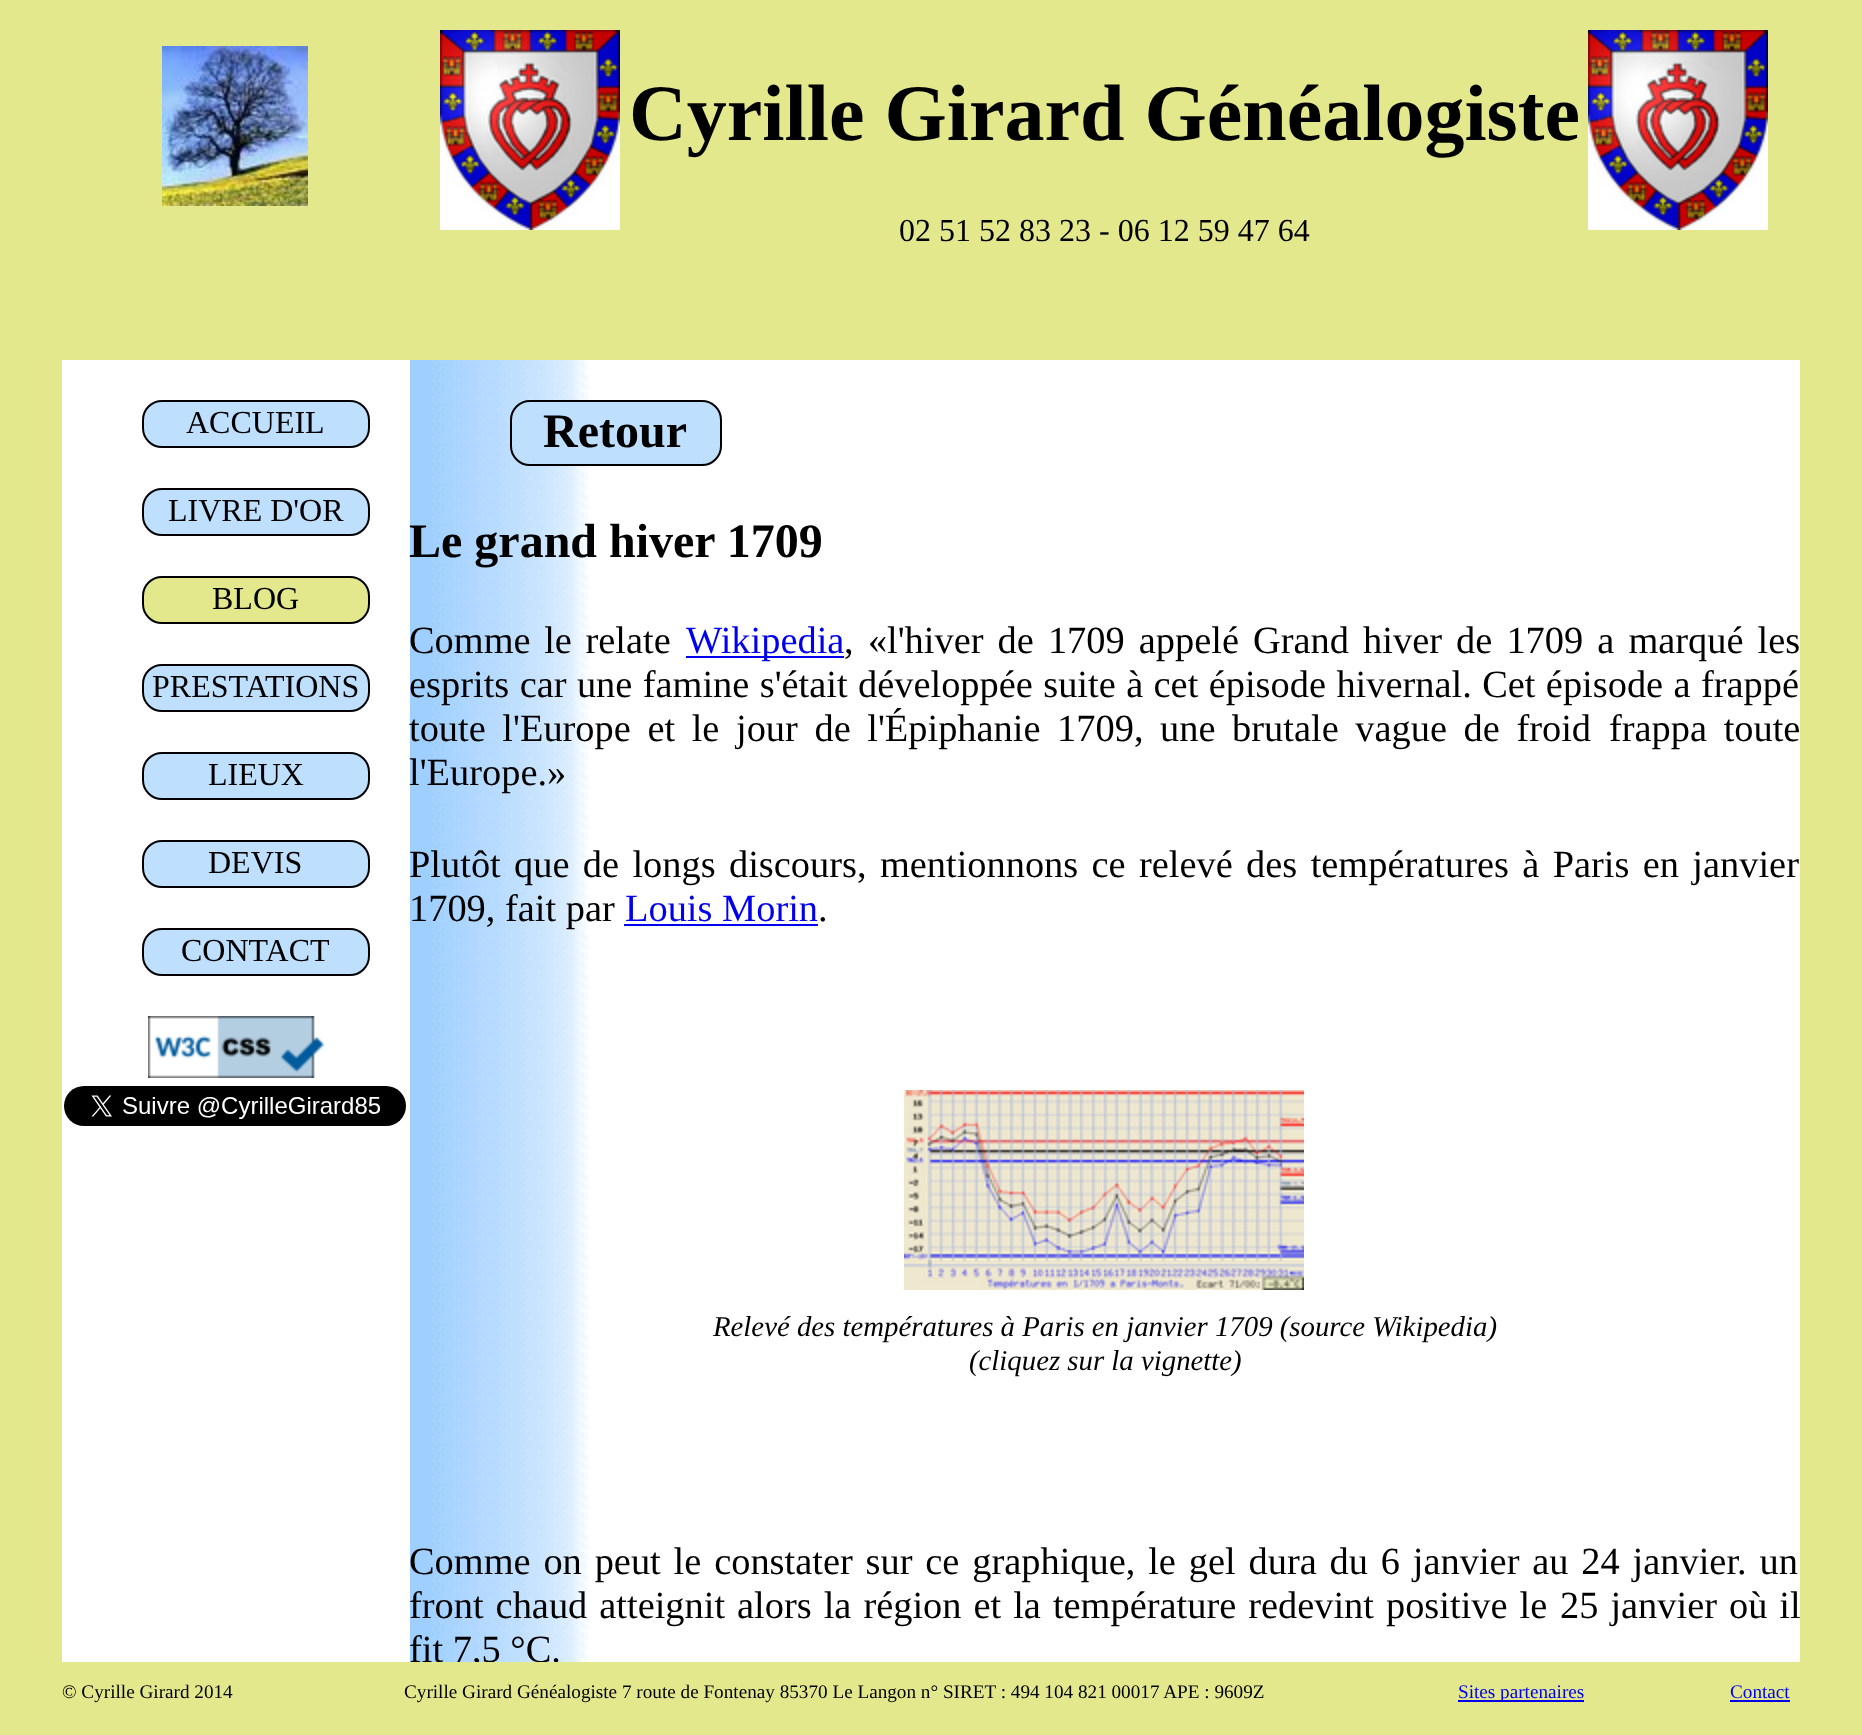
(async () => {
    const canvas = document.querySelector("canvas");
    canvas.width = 1862;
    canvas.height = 1735;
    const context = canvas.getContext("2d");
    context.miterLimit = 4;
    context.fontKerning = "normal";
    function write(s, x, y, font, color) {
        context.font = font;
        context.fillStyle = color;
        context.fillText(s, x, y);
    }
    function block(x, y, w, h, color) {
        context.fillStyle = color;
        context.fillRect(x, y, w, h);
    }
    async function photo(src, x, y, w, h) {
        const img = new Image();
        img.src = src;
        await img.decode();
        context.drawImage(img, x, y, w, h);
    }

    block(0, 0, 1862, 1735, "rgb(227, 232, 140)");
    await photo("media/1.png", 162, 46, 146, 160);
    await photo("media/2.png", 440, 30, 180, 200);
    write("Cyrille Girard Généalogiste", 629, 140, "bold 80px Liberation Serif", "rgb(0, 0, 0)");
    write("02 51 52 83 23 - 06 12 59 47 64", 899, 241, "32px Liberation Serif", "rgb(0, 0, 0)");
    await photo("media/2.png", 1588, 30, 180, 200);
    block(62, 360, 1738, 1302, "rgb(255, 255, 255)");
    context.fillStyle = "rgb(191, 223, 255)";
    context.beginPath();
    context.roundRect(143, 401, 226, 46, 19);
    context.fill();
    context.strokeStyle = "rgb(0, 0, 0)";
    context.lineWidth = 2;
    context.stroke();
    write("ACCUEIL", 186, 433, "32px Liberation Serif", "rgb(0, 0, 0)");
    context.fillStyle = "rgb(191, 223, 255)";
    context.beginPath();
    context.roundRect(143, 489, 226, 46, 19);
    context.fill();
    context.stroke();
    write("LIVRE D'OR", 168, 521, "32px Liberation Serif", "rgb(0, 0, 0)");
    context.fillStyle = "rgb(227, 232, 140)";
    context.beginPath();
    context.roundRect(143, 577, 226, 46, 19);
    context.fill();
    context.stroke();
    write("BLOG", 212, 609, "32px Liberation Serif", "rgb(0, 0, 0)");
    context.fillStyle = "rgb(191, 223, 255)";
    context.beginPath();
    context.roundRect(143, 665, 226, 46, 19);
    context.fill();
    context.stroke();
    write("PRESTATIONS", 152, 697, "32px Liberation Serif", "rgb(0, 0, 0)");
    context.fillStyle = "rgb(191, 223, 255)";
    context.beginPath();
    context.roundRect(143, 753, 226, 46, 19);
    context.fill();
    context.stroke();
    write("LIEUX", 208, 785, "32px Liberation Serif", "rgb(0, 0, 0)");
    context.fillStyle = "rgb(191, 223, 255)";
    context.beginPath();
    context.roundRect(143, 841, 226, 46, 19);
    context.fill();
    context.stroke();
    write("DEVIS", 208, 873, "32px Liberation Serif", "rgb(0, 0, 0)");
    context.fillStyle = "rgb(191, 223, 255)";
    context.beginPath();
    context.roundRect(143, 929, 226, 46, 19);
    context.fill();
    context.stroke();
    write("CONTACT", 181, 961, "32px Liberation Serif", "rgb(0, 0, 0)");
    await photo("media/3.png", 148, 1016, 176, 62);
    await photo("media/4.png", 64, 1086, 342, 40);
    await photo("media/5.png", 410, 360, 179, 1302);
    context.fillStyle = "rgb(191, 223, 255)";
    context.beginPath();
    context.roundRect(511, 401, 210, 64, 19);
    context.fill();
    context.stroke();
    write("Retour", 543, 447, "bold 48px Liberation Serif", "rgb(0, 0, 0)");
    write("Le grand hiver 1709", 409, 557, "bold 48px Liberation Serif", "rgb(0, 0, 0)");
    context.wordSpacing = "4px";
    write("Comme le relate", 409, 653, "38.4px Liberation Serif", "rgb(0, 0, 0)");
    block(686, 656, 158, 2, "rgb(0, 0, 238)");
    context.wordSpacing = "0px";
    write("Wikipedia", 686, 653, "38.4px Liberation Serif", "rgb(0, 0, 238)");
    write("«", 868, 653, "38.4px Liberation Serif", "rgb(0, 0, 0)");
    context.wordSpacing = "4.5px";
    write("l'hiver de 1709 appelé Grand hiver de 1709 a marqué les", 887, 653, "38.4px Liberation Serif", "rgb(0, 0, 0)");
    context.wordSpacing = "0px";
    write(",", 844, 653, "38.4px Liberation Serif", "rgb(0, 0, 0)");
    context.wordSpacing = "0.8px";
    write("esprits car une famine s'était développée suite à cet épisode hivernal. Cet épisode a frappé", 409, 697, "38.4px Liberation Serif", "rgb(0, 0, 0)");
    context.wordSpacing = "7px";
    write("toute l'Europe et le jour de l'Épiphanie 1709, une brutale vague de froid", 409, 741, "38.4px Liberation Serif", "rgb(0, 0, 0)");
    write("frappa toute", 1609, 741, "38.4px Liberation Serif", "rgb(0, 0, 0)");
    context.wordSpacing = "0px";
    write("l'Europe.»", 409, 785, "38.4px Liberation Serif", "rgb(0, 0, 0)");
    context.wordSpacing = "3.75px";
    write("Plutôt que de longs discours, mentionnons ce relevé des températures à Paris en janvier", 409, 877, "38.4px Liberation Serif", "rgb(0, 0, 0)");
    context.wordSpacing = "0px";
    write("1709, fait par", 409, 921, "38.4px Liberation Serif", "rgb(0, 0, 0)");
    write("Louis Morin", 625, 921, "38.4px Liberation Serif", "rgb(0, 0, 238)");
    block(624, 924, 194, 2, "rgb(0, 0, 238)");
    write(".", 818, 921, "38.4px Liberation Serif", "rgb(0, 0, 0)");
    await photo("media/6.png", 904, 1090, 400, 200);
    write("Relevé des températures à Paris en janvier 1709 (source Wikipedia)", 713, 1336, "italic 28.8px Liberation Serif", "rgb(0, 0, 0)");
    write("(cliquez sur la vignette)", 969, 1370, "italic 28.8px Liberation Serif", "rgb(0, 0, 0)");
    context.wordSpacing = "3.25px";
    write("Comme on peut le constater sur ce graphique, le gel dura du 6 janvier au 24 janvier. un", 409, 1574, "38.4px Liberation Serif", "rgb(0, 0, 0)");
    context.wordSpacing = "2.4px";
    write("front chaud atteignit alors la région et la température redevint positive le", 409, 1618, "38.4px Liberation Serif", "rgb(0, 0, 0)");
    write("25 janvier où il", 1560, 1618, "38.4px Liberation Serif", "rgb(0, 0, 0)");
    context.save();
    context.beginPath();
    context.rect(410, 360, 1390, 1302);
    context.clip();
    context.wordSpacing = "0px";
    write("fit 7,5 °C.", 409, 1662, "38.4px Liberation Serif", "rgb(0, 0, 0)");
    context.restore();
    context.wordSpacing = "0px";
    write("© Cyrille Girard 2014", 62, 1698, "19.2px Liberation Serif", "rgb(0, 0, 0)");
    write("Cyrille Girard Généalogiste 7 route de Fontenay 85370 Le Langon n° SIRET : 494 104 821 00017 APE : 9609Z", 404, 1698, "19.2px Liberation Serif", "rgb(0, 0, 0)");
    block(1458, 1700, 126, 2, "rgb(0, 0, 238)");
    write("Sites partenaires", 1458, 1698, "19.2px Liberation Serif", "rgb(0, 0, 238)");
    write("Contact", 1730, 1698, "19.2px Liberation Serif", "rgb(0, 0, 238)");
    block(1730, 1700, 60, 2, "rgb(0, 0, 238)");
})();
